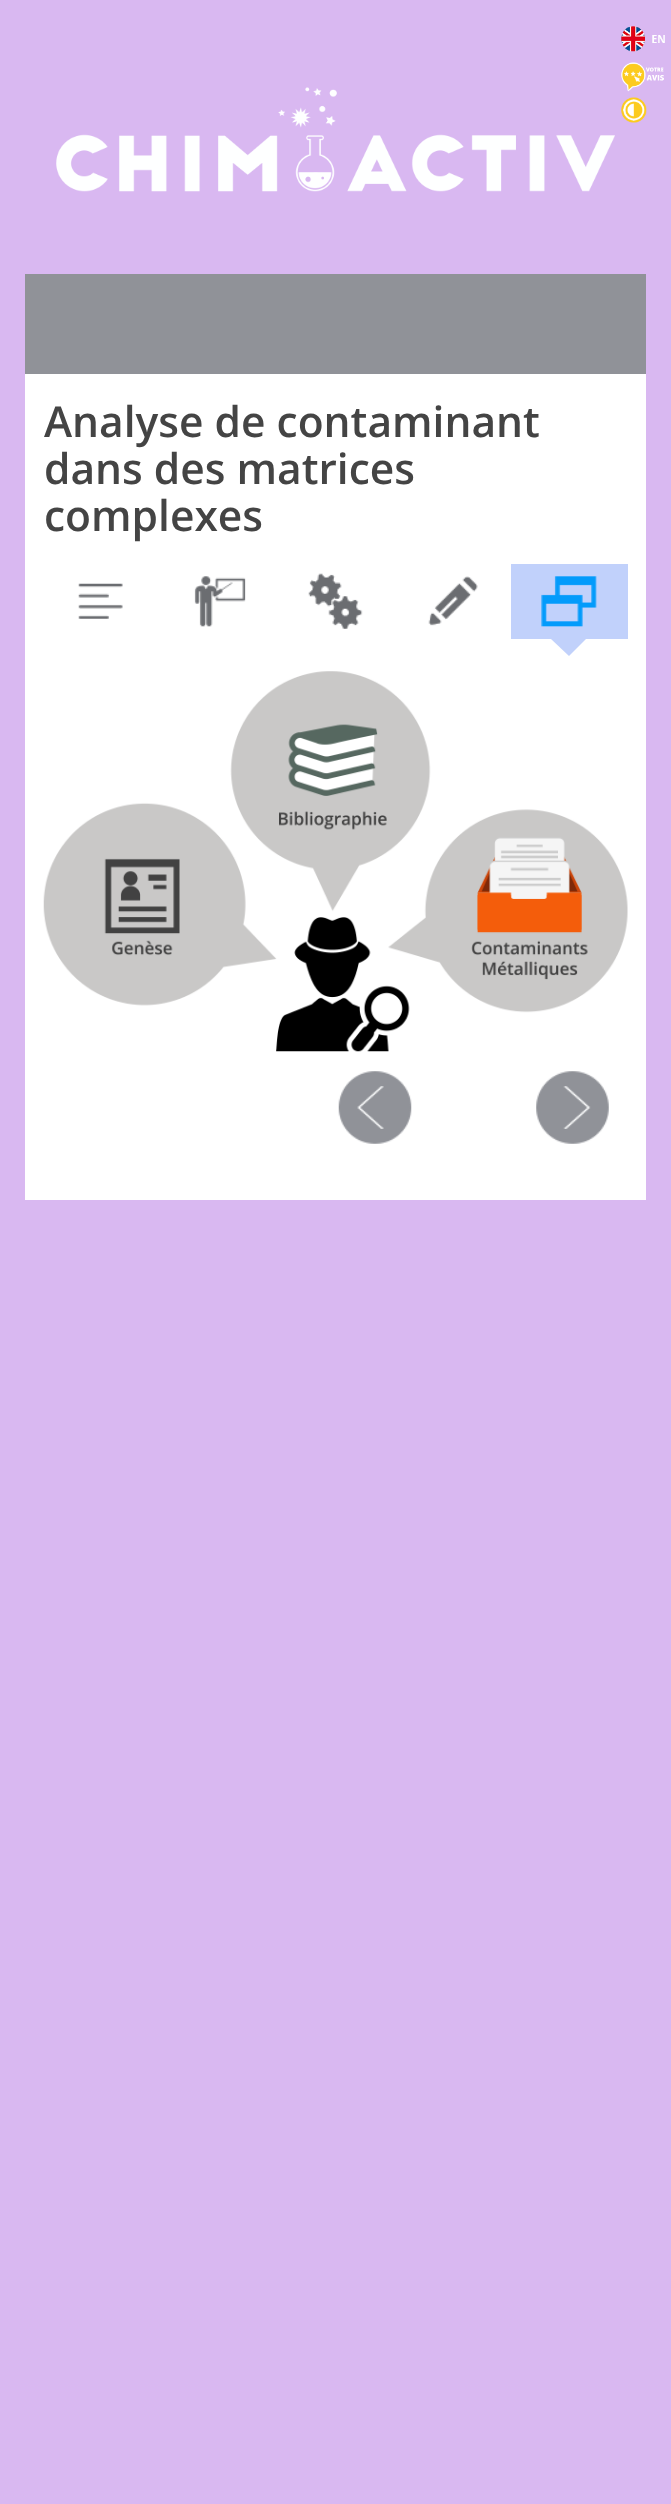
(async () => {
    const canvas = document.querySelector("canvas");
    canvas.width = 671;
    canvas.height = 2504;
    const context = canvas.getContext("2d");
    context.miterLimit = 4;
    context.fontKerning = "normal";
    function write(s, x, y, font, color) {
        context.font = font;
        context.fillStyle = color;
        context.fillText(s, x, y);
    }
    function block(x, y, w, h, color) {
        context.fillStyle = color;
        context.fillRect(x, y, w, h);
    }
    async function photo(src, x, y, w, h) {
        const img = new Image();
        img.src = src;
        await img.decode();
        context.drawImage(img, x, y, w, h);
    }

    block(0, 0, 671, 2504, "rgb(217, 184, 241)");
    await photo("media/1.png", 621, 26, 44, 26);
    await photo("media/2.png", 621, 62, 43, 30);
    await photo("media/3.png", 621, 97, 26, 26);
    await photo("media/4.png", 56, 87, 559, 105);
    block(25, 274, 621, 100, "rgb(144, 146, 152)");
    block(25, 374, 621, 826, "rgb(255, 255, 255)");
    write("Analyse de contaminant", 44, 437, "600 42.5px Open Sans", "rgb(68, 68, 68)");
    write("dans des matrices", 44, 484, "600 42.5px Open Sans", "rgb(68, 68, 68)");
    write("complexes", 44, 531, "600 42.5px Open Sans", "rgb(68, 68, 68)");
    await photo("media/5.png", 78, 583, 45, 36);
    await photo("media/6.png", 194, 576, 52, 51);
    await photo("media/7.png", 308, 573, 55, 56);
    await photo("media/8.png", 428, 576, 50, 50);
    block(511, 564, 117, 75, "rgb(193, 209, 251)");
    await photo("media/9.png", 541, 576, 56, 51);
    context.beginPath();
    context.moveTo(551, 639);
    context.lineTo(586, 639);
    context.lineTo(569, 656);
    context.closePath();
    context.fill();
    await photo("media/10.png", 43, 671, 585, 381);
    await photo("media/11.png", 338, 1071, 74, 73);
    await photo("media/12.png", 536, 1071, 73, 73);
})();
